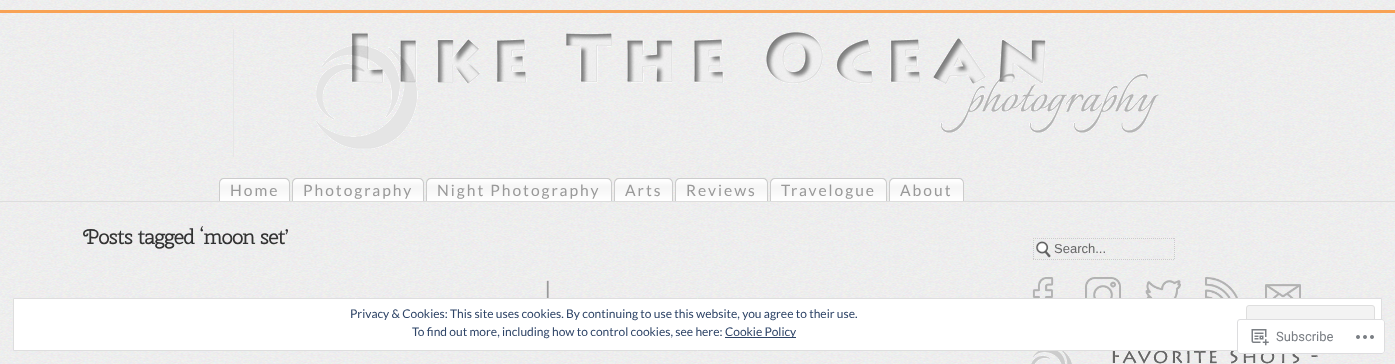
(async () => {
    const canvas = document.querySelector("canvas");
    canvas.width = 1395;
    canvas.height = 364;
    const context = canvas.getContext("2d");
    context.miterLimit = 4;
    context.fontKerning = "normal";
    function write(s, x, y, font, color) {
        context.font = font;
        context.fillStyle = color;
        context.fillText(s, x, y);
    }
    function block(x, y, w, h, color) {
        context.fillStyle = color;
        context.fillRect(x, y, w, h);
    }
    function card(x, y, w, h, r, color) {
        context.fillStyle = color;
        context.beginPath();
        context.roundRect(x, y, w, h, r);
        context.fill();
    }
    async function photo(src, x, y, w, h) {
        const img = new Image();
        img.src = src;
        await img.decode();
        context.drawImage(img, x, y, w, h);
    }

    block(0, 0, 1395, 364, "rgb(255, 255, 255)");
    await photo("media/1.png", 0, 0, 1395, 364);
    block(0, 10, 1395, 3, "rgb(248, 162, 84)");
    await photo("media/2.png", 233, 28, 926, 130);
    block(0, 201, 1395, 1, "rgb(221, 221, 221)");
    await photo("media/3.png", 219, 179, 71, 22);
    context.fillStyle = "rgb(204, 204, 204)";
    context.beginPath();
    context.moveTo(224, 178);
    context.lineTo(285, 178);
    context.bezierCurveTo(288, 178, 290, 180, 290, 183);
    context.lineTo(290, 201);
    context.lineTo(219, 201);
    context.lineTo(219, 183);
    context.bezierCurveTo(219, 180, 221, 178, 224, 178);
    context.closePath();
    context.moveTo(224, 179);
    context.lineTo(285, 179);
    context.bezierCurveTo(287, 179, 289, 181, 289, 183);
    context.lineTo(289, 201);
    context.lineTo(220, 201);
    context.lineTo(220, 183);
    context.bezierCurveTo(220, 181, 222, 179, 224, 179);
    context.closePath();
    context.fill("evenodd");
    context.letterSpacing = "2px";
    write("Home", 230, 196, "15.6px Lato", "rgb(153, 153, 153)");
    await photo("media/4.png", 292, 179, 132, 22);
    context.fillStyle = "rgb(204, 204, 204)";
    context.beginPath();
    context.moveTo(297, 178);
    context.lineTo(419, 178);
    context.bezierCurveTo(422, 178, 424, 180, 424, 183);
    context.lineTo(424, 201);
    context.lineTo(292, 201);
    context.lineTo(292, 183);
    context.bezierCurveTo(292, 180, 294, 178, 297, 178);
    context.closePath();
    context.moveTo(297, 179);
    context.lineTo(419, 179);
    context.bezierCurveTo(421, 179, 423, 181, 423, 183);
    context.lineTo(423, 201);
    context.lineTo(293, 201);
    context.lineTo(293, 183);
    context.bezierCurveTo(293, 181, 295, 179, 297, 179);
    context.closePath();
    context.fill("evenodd");
    write("Photography", 303, 196, "15.6px Lato", "rgb(153, 153, 153)");
    await photo("media/5.png", 426, 179, 186, 22);
    context.fillStyle = "rgb(204, 204, 204)";
    context.beginPath();
    context.moveTo(431, 178);
    context.lineTo(607, 178);
    context.bezierCurveTo(610, 178, 612, 180, 612, 183);
    context.lineTo(612, 201);
    context.lineTo(426, 201);
    context.lineTo(426, 183);
    context.bezierCurveTo(426, 180, 428, 178, 431, 178);
    context.closePath();
    context.moveTo(431, 179);
    context.lineTo(607, 179);
    context.bezierCurveTo(609, 179, 611, 181, 611, 183);
    context.lineTo(611, 201);
    context.lineTo(427, 201);
    context.lineTo(427, 183);
    context.bezierCurveTo(427, 181, 429, 179, 431, 179);
    context.closePath();
    context.fill("evenodd");
    write("Night Photography", 437, 196, "15.6px Lato", "rgb(153, 153, 153)");
    await photo("media/6.png", 614, 179, 59, 22);
    context.fillStyle = "rgb(204, 204, 204)";
    context.beginPath();
    context.moveTo(619, 178);
    context.lineTo(668, 178);
    context.bezierCurveTo(671, 178, 673, 180, 673, 183);
    context.lineTo(673, 201);
    context.lineTo(614, 201);
    context.lineTo(614, 183);
    context.bezierCurveTo(614, 180, 616, 178, 619, 178);
    context.closePath();
    context.moveTo(619, 179);
    context.lineTo(668, 179);
    context.bezierCurveTo(670, 179, 672, 181, 672, 183);
    context.lineTo(672, 201);
    context.lineTo(615, 201);
    context.lineTo(615, 183);
    context.bezierCurveTo(615, 181, 617, 179, 619, 179);
    context.closePath();
    context.fill("evenodd");
    write("Arts", 625, 196, "15.6px Lato", "rgb(153, 153, 153)");
    await photo("media/7.png", 675, 179, 93, 22);
    context.fillStyle = "rgb(204, 204, 204)";
    context.beginPath();
    context.moveTo(680, 178);
    context.lineTo(763, 178);
    context.bezierCurveTo(766, 178, 768, 180, 768, 183);
    context.lineTo(768, 201);
    context.lineTo(675, 201);
    context.lineTo(675, 183);
    context.bezierCurveTo(675, 180, 677, 178, 680, 178);
    context.closePath();
    context.moveTo(680, 179);
    context.lineTo(763, 179);
    context.bezierCurveTo(765, 179, 767, 181, 767, 183);
    context.lineTo(767, 201);
    context.lineTo(676, 201);
    context.lineTo(676, 183);
    context.bezierCurveTo(676, 181, 678, 179, 680, 179);
    context.closePath();
    context.fill("evenodd");
    write("Reviews", 686, 196, "15.6px Lato", "rgb(153, 153, 153)");
    await photo("media/8.png", 770, 179, 117, 22);
    context.fillStyle = "rgb(204, 204, 204)";
    context.beginPath();
    context.moveTo(775, 178);
    context.lineTo(882, 178);
    context.bezierCurveTo(885, 178, 887, 180, 887, 183);
    context.lineTo(887, 201);
    context.lineTo(770, 201);
    context.lineTo(770, 183);
    context.bezierCurveTo(770, 180, 772, 178, 775, 178);
    context.closePath();
    context.moveTo(775, 179);
    context.lineTo(882, 179);
    context.bezierCurveTo(884, 179, 886, 181, 886, 183);
    context.lineTo(886, 201);
    context.lineTo(771, 201);
    context.lineTo(771, 183);
    context.bezierCurveTo(771, 181, 773, 179, 775, 179);
    context.closePath();
    context.fill("evenodd");
    write("Travelogue", 781, 196, "15.6px Lato", "rgb(153, 153, 153)");
    await photo("media/9.png", 889, 179, 75, 22);
    context.fillStyle = "rgb(204, 204, 204)";
    context.beginPath();
    context.moveTo(894, 178);
    context.lineTo(959, 178);
    context.bezierCurveTo(962, 178, 964, 180, 964, 183);
    context.lineTo(964, 201);
    context.lineTo(889, 201);
    context.lineTo(889, 183);
    context.bezierCurveTo(889, 180, 891, 178, 894, 178);
    context.closePath();
    context.moveTo(894, 179);
    context.lineTo(959, 179);
    context.bezierCurveTo(961, 179, 963, 181, 963, 183);
    context.lineTo(963, 201);
    context.lineTo(890, 201);
    context.lineTo(890, 183);
    context.bezierCurveTo(890, 181, 892, 179, 894, 179);
    context.closePath();
    context.fill("evenodd");
    write("About", 900, 196, "15.6px Lato", "rgb(153, 153, 153)");
    context.letterSpacing = "-1px";
    write("Posts tagged ‘moon set’", 83, 244, "21px Cherry Swash", "rgb(51, 51, 51)");
    await photo("media/10.png", 1036, 241, 15, 17);
    context.beginPath();
    context.moveTo(1033, 238.5);
    context.lineTo(1175, 238.5);
    context.strokeStyle = "rgb(204, 204, 204)";
    context.setLineDash([1, 1]);
    context.stroke();
    context.beginPath();
    context.moveTo(1174.5, 238);
    context.lineTo(1174.5, 260);
    context.stroke();
    context.beginPath();
    context.moveTo(1033, 259.5);
    context.lineTo(1175, 259.5);
    context.stroke();
    context.beginPath();
    context.moveTo(1033.5, 238);
    context.lineTo(1033.5, 260);
    context.stroke();
    context.letterSpacing = "0px";
    write("Search...", 1054, 253, "13px Liberation Sans", "rgb(102, 102, 102)");
    await photo("media/11.png", 1032, 277, 22, 21);
    await photo("media/12.png", 1085, 277, 36, 21);
    await photo("media/13.png", 1145, 280, 36, 18);
    await photo("media/14.png", 1205, 277, 33, 21);
    await photo("media/15.png", 1265, 284, 36, 14);
    await photo("media/16.png", 1031, 351, 287, 13);
    write("|", 544, 300, "25px Lato", "rgb(153, 153, 153)");
    context.fillStyle = "rgb(255, 255, 255)";
    context.beginPath();
    context.rect(13.5, 298.5, 1368, 52);
    context.fill();
    context.strokeStyle = "rgb(222, 222, 222)";
    context.setLineDash([]);
    context.stroke();
    write("Privacy & Cookies: This site uses cookies. By continuing to use this website, you agree to their use.", 350, 318, "12px Lato", "rgb(46, 68, 103)");
    context.fillStyle = "rgb(243, 243, 243)";
    context.beginPath();
    context.roundRect(1246.5, 305.5, 128, 38, 2.5);
    context.fill();
    context.stroke();
    write("To find out more, including how to control cookies, see here:", 412, 336, "12px Lato", "rgb(46, 68, 103)");
    block(725, 337, 71, 1, "rgb(46, 68, 103)");
    write("Cookie Policy", 725, 336, "12px Lato", "rgb(46, 68, 103)");
    card(1237, 319, 148, 35, 3, "rgba(255, 255, 255, 0.98)");
    context.beginPath();
    context.roundRect(1237.5, 319.5, 147, 34, 2.5);
    context.strokeStyle = "rgba(220, 220, 222, 0.98)";
    context.stroke();
    await photo("media/17.png", 1251, 329, 18, 17);
    write("Subscribe", 1276, 341, "13px Roboto", "rgb(122, 126, 132)");
    await photo("media/18.png", 1356, 335, 18, 4);
})();
